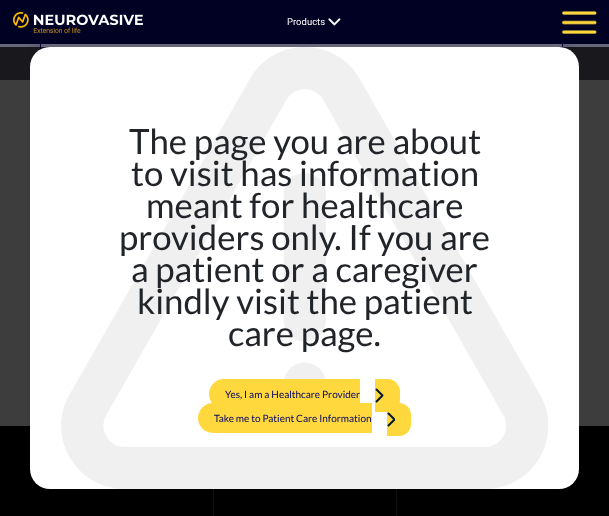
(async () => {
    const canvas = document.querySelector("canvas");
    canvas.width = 609;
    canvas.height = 516;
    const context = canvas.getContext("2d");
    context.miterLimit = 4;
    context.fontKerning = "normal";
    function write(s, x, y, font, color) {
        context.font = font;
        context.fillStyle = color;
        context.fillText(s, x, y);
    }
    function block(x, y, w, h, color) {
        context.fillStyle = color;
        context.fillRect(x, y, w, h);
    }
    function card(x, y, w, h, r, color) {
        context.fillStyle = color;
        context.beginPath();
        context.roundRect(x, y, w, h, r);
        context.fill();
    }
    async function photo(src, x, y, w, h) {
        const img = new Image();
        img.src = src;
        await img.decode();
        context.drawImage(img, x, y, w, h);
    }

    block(0, 0, 609, 516, "rgb(255, 255, 255)");
    context.save();
    context.beginPath();
    context.moveTo(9, 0);
    context.lineTo(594, 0);
    context.lineTo(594, 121);
    context.lineTo(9, 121);
    context.closePath();
    context.moveTo(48, -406);
    context.lineTo(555, -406);
    context.bezierCurveTo(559.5, -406, 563, -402.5, 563, -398);
    context.lineTo(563, 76);
    context.bezierCurveTo(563, 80.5, 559.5, 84, 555, 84);
    context.lineTo(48, 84);
    context.bezierCurveTo(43.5, 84, 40, 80.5, 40, 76);
    context.lineTo(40, -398);
    context.bezierCurveTo(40, -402.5, 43.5, -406, 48, -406);
    context.closePath();
    context.clip("evenodd");
    context.fillStyle = "rgba(0, 0, 0, 0.2)";
    context.filter = "blur(10px)";
    context.beginPath();
    context.roundRect(40, -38, 523, 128, 8);
    context.fill();
    context.filter = "none";
    context.restore();
    context.strokeStyle = "rgb(0, 5, 121)";
    context.strokeRect(40.5, -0.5, 522, 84);
    context.fillStyle = "rgba(0, 0, 0, 0.2)";
    context.filter = "blur(10px)";
    context.beginPath();
    context.roundRect(40, 100, 523, 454, 8);
    context.fill();
    context.filter = "none";
    block(0, 0, 609, 44, "rgb(0, 1, 35)");
    await photo("media/1.png", 13, 12, 130, 21);
    write("Products", 287, 25, "9.5px Roboto", "rgb(255, 255, 255)");
    await photo("media/2.png", 328, 18, 13, 8);
    await photo("media/3.png", 562, 11, 35, 23);
    block(0, 44, 609, 36, "rgba(0, 1, 35, 0.6)");
    block(0, 426, 609, 90, "rgb(0, 0, 0)");
    block(213, 489, 1, 27, "rgb(68, 68, 68)");
    block(396, 489, 1, 27, "rgb(68, 68, 68)");
    block(0, 47, 609, 469, "rgba(0, 0, 0, 0.76)");
    card(30, 47, 549, 442, 20, "rgb(255, 255, 255)");
    await photo("media/4.png", 61, 47, 487, 442);
    write("The page you are about", 129, 154, "34.75px Lato", "rgb(33, 37, 41)");
    write("to visit has information", 131, 186, "34.75px Lato", "rgb(33, 37, 41)");
    write("meant for healthcare", 146, 218, "34.75px Lato", "rgb(33, 37, 41)");
    write("providers only. If you are", 119, 250, "34.75px Lato", "rgb(33, 37, 41)");
    write("a patient or a caregiver", 131, 282, "34.75px Lato", "rgb(33, 37, 41)");
    write("kindly visit the patient", 137, 314, "34.75px Lato", "rgb(33, 37, 41)");
    write("care page.", 228, 346, "34.75px Lato", "rgb(33, 37, 41)");
    context.fillStyle = "rgb(255, 216, 61)";
    context.beginPath();
    context.roundRect(209, 379, 151, 30, [15, 0, 0, 15]);
    context.fill();
    context.beginPath();
    context.roundRect(375, 379, 25, 33, [0, 12.5, 12.5, 0]);
    context.fill();
    write("Yes, I am a Healthcare Provider", 225, 398, "10px Lato", "rgb(0, 4, 102)");
    context.beginPath();
    context.moveTo(376.5, 401.5);
    context.lineTo(382.5, 395.5);
    context.lineTo(376.5, 389.5);
    context.strokeStyle = "rgb(6, 25, 43)";
    context.lineWidth = 2;
    context.lineCap = "round";
    context.lineJoin = "round";
    context.stroke();
    context.fillStyle = "rgb(255, 216, 61)";
    context.beginPath();
    context.roundRect(198, 403, 174, 30, [15, 0, 0, 15]);
    context.fill();
    context.beginPath();
    context.roundRect(387, 403, 24, 33, [0, 12, 12, 0]);
    context.fill();
    write("Take me to Patient Care Information", 214, 422, "10px Lato", "rgb(0, 4, 102)");
    context.save();
    context.beginPath();
    context.rect(387, 412, 8, 15);
    context.clip();
    context.beginPath();
    context.moveTo(388.5, 425.5);
    context.lineTo(394.5, 419.5);
    context.lineTo(388.5, 413.5);
    context.stroke();
    context.restore();
})();
